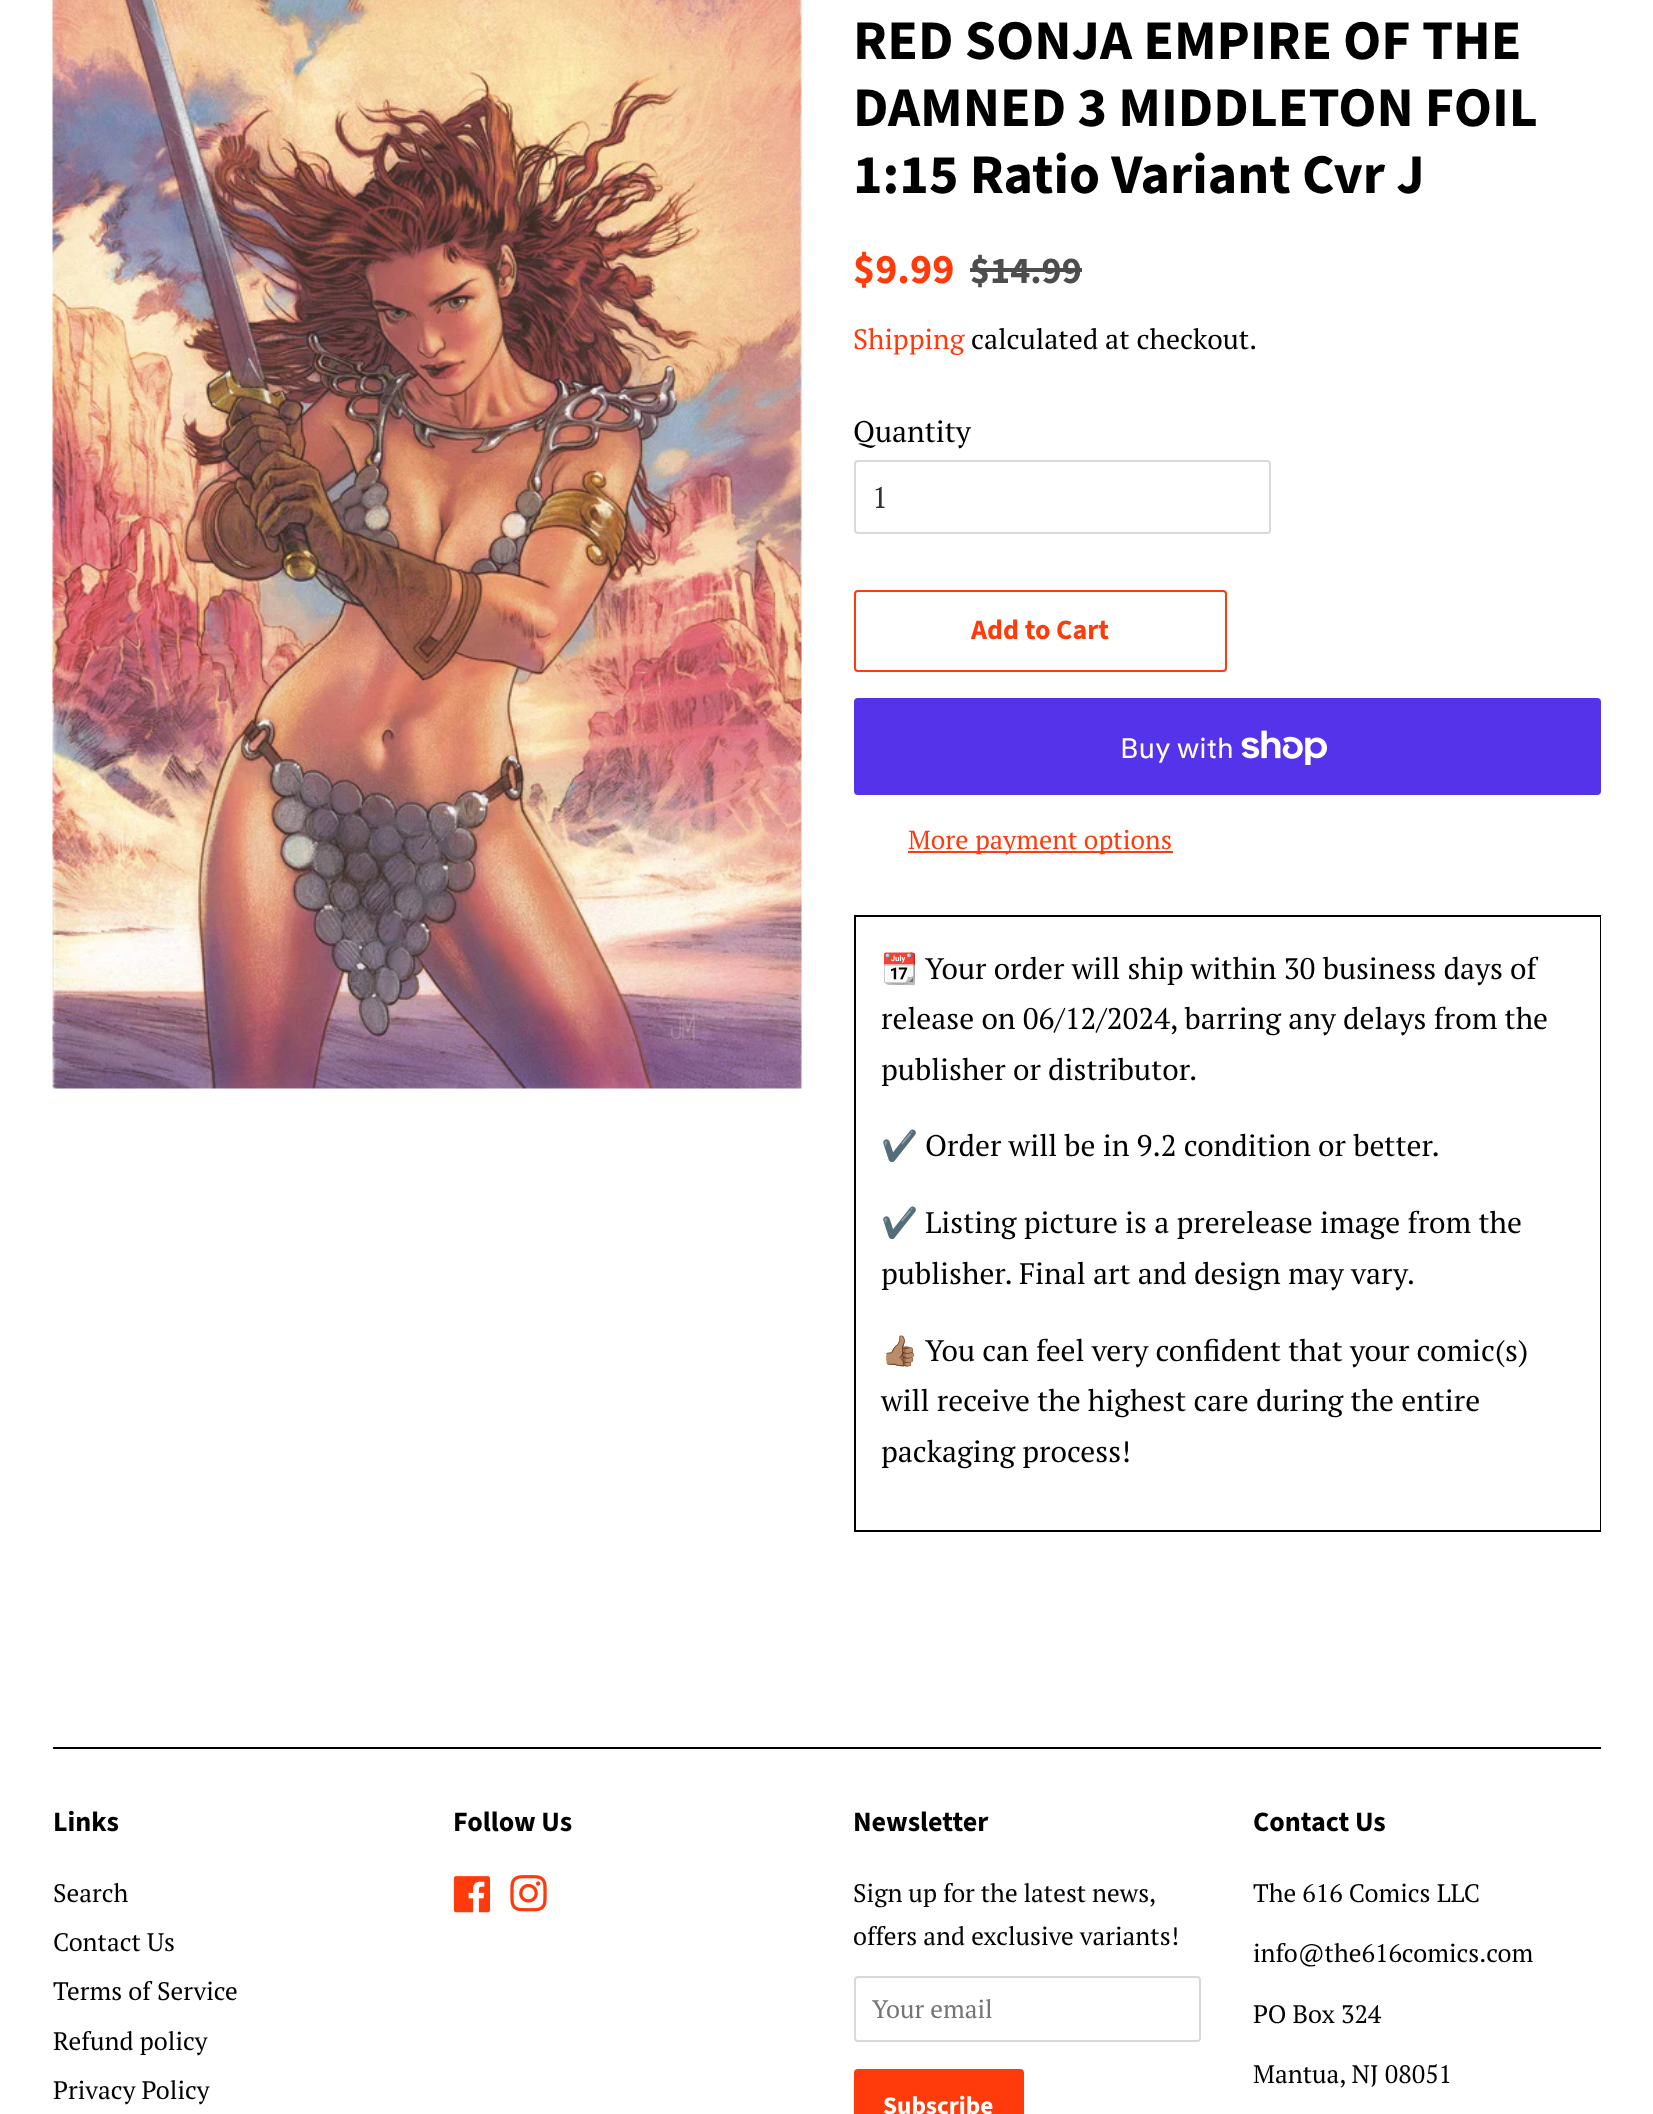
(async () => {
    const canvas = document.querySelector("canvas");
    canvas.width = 1653;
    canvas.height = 2114;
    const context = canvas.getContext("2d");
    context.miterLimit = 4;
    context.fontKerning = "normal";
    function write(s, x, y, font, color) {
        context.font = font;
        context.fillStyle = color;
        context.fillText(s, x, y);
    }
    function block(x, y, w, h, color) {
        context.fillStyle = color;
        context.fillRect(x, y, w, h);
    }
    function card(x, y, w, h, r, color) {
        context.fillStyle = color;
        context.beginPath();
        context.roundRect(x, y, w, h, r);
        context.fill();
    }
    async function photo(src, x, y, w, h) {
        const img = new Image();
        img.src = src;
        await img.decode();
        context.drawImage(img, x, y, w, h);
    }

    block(0, 0, 1653, 2114, "rgb(255, 255, 255)");
    await photo("media/1.png", 52, 0, 750, 1089);
    write("RED SONJA EMPIRE OF THE", 853, 59, "bold 56px Source Sans Pro", "rgb(0, 0, 0)");
    write("DAMNED 3 MIDDLETON FOIL", 853, 126, "bold 56px Source Sans Pro", "rgb(0, 0, 0)");
    write("1:15 Ratio Variant Cvr J", 853, 193, "bold 56px Source Sans Pro", "rgb(0, 0, 0)");
    write("$9.99", 853, 283, "bold 42px Source Sans Pro", "rgb(255, 58, 11)");
    write("$14.99", 970, 283, "bold 38px Source Sans Pro", "rgb(77, 77, 77)");
    block(970, 268, 112, 4, "rgb(77, 77, 77)");
    write("Shipping", 853, 349, "28px PT Serif", "rgb(255, 58, 11)");
    write("calculated at checkout.", 971, 349, "28px PT Serif", "rgb(0, 0, 0)");
    write("Quantity", 853, 442, "29.75px PT Serif", "rgb(0, 0, 0)");
    context.beginPath();
    context.roundRect(855, 461, 415, 72, 3);
    context.strokeStyle = "rgb(217, 217, 217)";
    context.lineWidth = 2;
    context.stroke();
    write("1", 872, 508, "29.75px PT Serif", "rgb(51, 51, 51)");
    context.beginPath();
    context.roundRect(855, 591, 371, 80, 3);
    context.strokeStyle = "rgb(255, 58, 11)";
    context.stroke();
    write("Add to Cart", 971, 639, "bold 28px Source Sans Pro", "rgb(255, 58, 11)");
    card(854, 698, 747, 97, 4, "rgb(84, 51, 235)");
    write("Buy with", 1120, 758, "28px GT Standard", "rgb(255, 255, 255)");
    await photo("media/2.png", 1241, 730, 86, 35);
    block(908, 851, 265, 2, "rgb(255, 58, 11)");
    write("More payment options", 908, 849, "26.25px PT Serif", "rgb(255, 58, 11)");
    block(854, 915, 747, 2, "rgb(0, 0, 0)");
    block(1600, 915, 1, 616, "rgb(0, 0, 0)");
    block(854, 1530, 747, 2, "rgb(0, 0, 0)");
    block(854, 915, 2, 616, "rgb(0, 0, 0)");
    write("📆", 881, 979, "29.75px Noto Color Emoji", "rgb(0, 0, 0)");
    write("Your order will ship within 30 business days of", 925, 979, "29.75px PT Serif", "rgb(0, 0, 0)");
    write("release on 06/12/2024, barring any delays from the", 881, 1029, "29.75px PT Serif", "rgb(0, 0, 0)");
    write("publisher or distributor.", 881, 1080, "29.75px PT Serif", "rgb(0, 0, 0)");
    write("✔️", 881, 1156, "29.75px Noto Color Emoji", "rgb(0, 0, 0)");
    write("Order will be in 9.2 condition or better.", 925, 1156, "29.75px PT Serif", "rgb(0, 0, 0)");
    write("✔️", 881, 1233, "29.75px Noto Color Emoji", "rgb(0, 0, 0)");
    write("Listing picture is a prerelease image from the", 925, 1233, "29.75px PT Serif", "rgb(0, 0, 0)");
    write("publisher. Final art and design may vary.", 881, 1284, "29.75px PT Serif", "rgb(0, 0, 0)");
    write("👍🏽", 881, 1361, "29.75px Noto Color Emoji", "rgb(0, 0, 0)");
    write("You can feel very confident that your comic(s)", 925, 1361, "29.75px PT Serif", "rgb(0, 0, 0)");
    write("will receive the highest care during the entire", 881, 1411, "29.75px PT Serif", "rgb(0, 0, 0)");
    write("packaging process!", 881, 1462, "29.75px PT Serif", "rgb(0, 0, 0)");
    block(53, 1747, 1548, 2, "rgb(0, 0, 0)");
    write("Links", 53, 1831, "bold 28px Source Sans Pro", "rgb(0, 0, 0)");
    write("Search", 53, 1902, "25.25px PT Serif", "rgb(0, 0, 0)");
    write("Contact Us", 53, 1951, "25.25px PT Serif", "rgb(0, 0, 0)");
    write("Terms of Service", 53, 2000, "25.25px PT Serif", "rgb(0, 0, 0)");
    write("Refund policy", 53, 2050, "25.25px PT Serif", "rgb(0, 0, 0)");
    write("Privacy Policy", 53, 2099, "25.25px PT Serif", "rgb(0, 0, 0)");
    write("Follow Us", 453, 1831, "bold 28px Source Sans Pro", "rgb(0, 0, 0)");
    await photo("media/3.png", 453, 1876, 37, 37);
    await photo("media/4.png", 510, 1875, 37, 37);
    write("Newsletter", 853, 1831, "bold 28px Source Sans Pro", "rgb(0, 0, 0)");
    context.wordSpacing = "-0.25px";
    write("Sign up for the latest news,", 853, 1902, "25.25px PT Serif", "rgb(0, 0, 0)");
    context.wordSpacing = "0px";
    write("offers and exclusive variants!", 853, 1945, "25.25px PT Serif", "rgb(0, 0, 0)");
    context.beginPath();
    context.roundRect(855, 1977, 345, 64, 3);
    context.strokeStyle = "rgb(217, 217, 217)";
    context.stroke();
    write("Your email", 872, 2018, "25.25px PT Serif", "rgb(117, 117, 117)");
    card(854, 2069, 170, 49, 4, "rgb(255, 58, 11)");
    write("Subscribe", 883, 2114, "bold 25.25px Source Sans Pro", "rgb(255, 255, 255)");
    write("Contact Us", 1253, 1831, "bold 28px Source Sans Pro", "rgb(0, 0, 0)");
    write("The 616 Comics LLC", 1253, 1902, "25.25px PT Serif", "rgb(0, 0, 0)");
    write("info@the616comics.com", 1253, 1962, "25.25px PT Serif", "rgb(0, 0, 0)");
    write("PO Box 324", 1253, 2023, "25.25px PT Serif", "rgb(0, 0, 0)");
    write("Mantua, NJ 08051", 1253, 2083, "25.25px PT Serif", "rgb(0, 0, 0)");
})();
